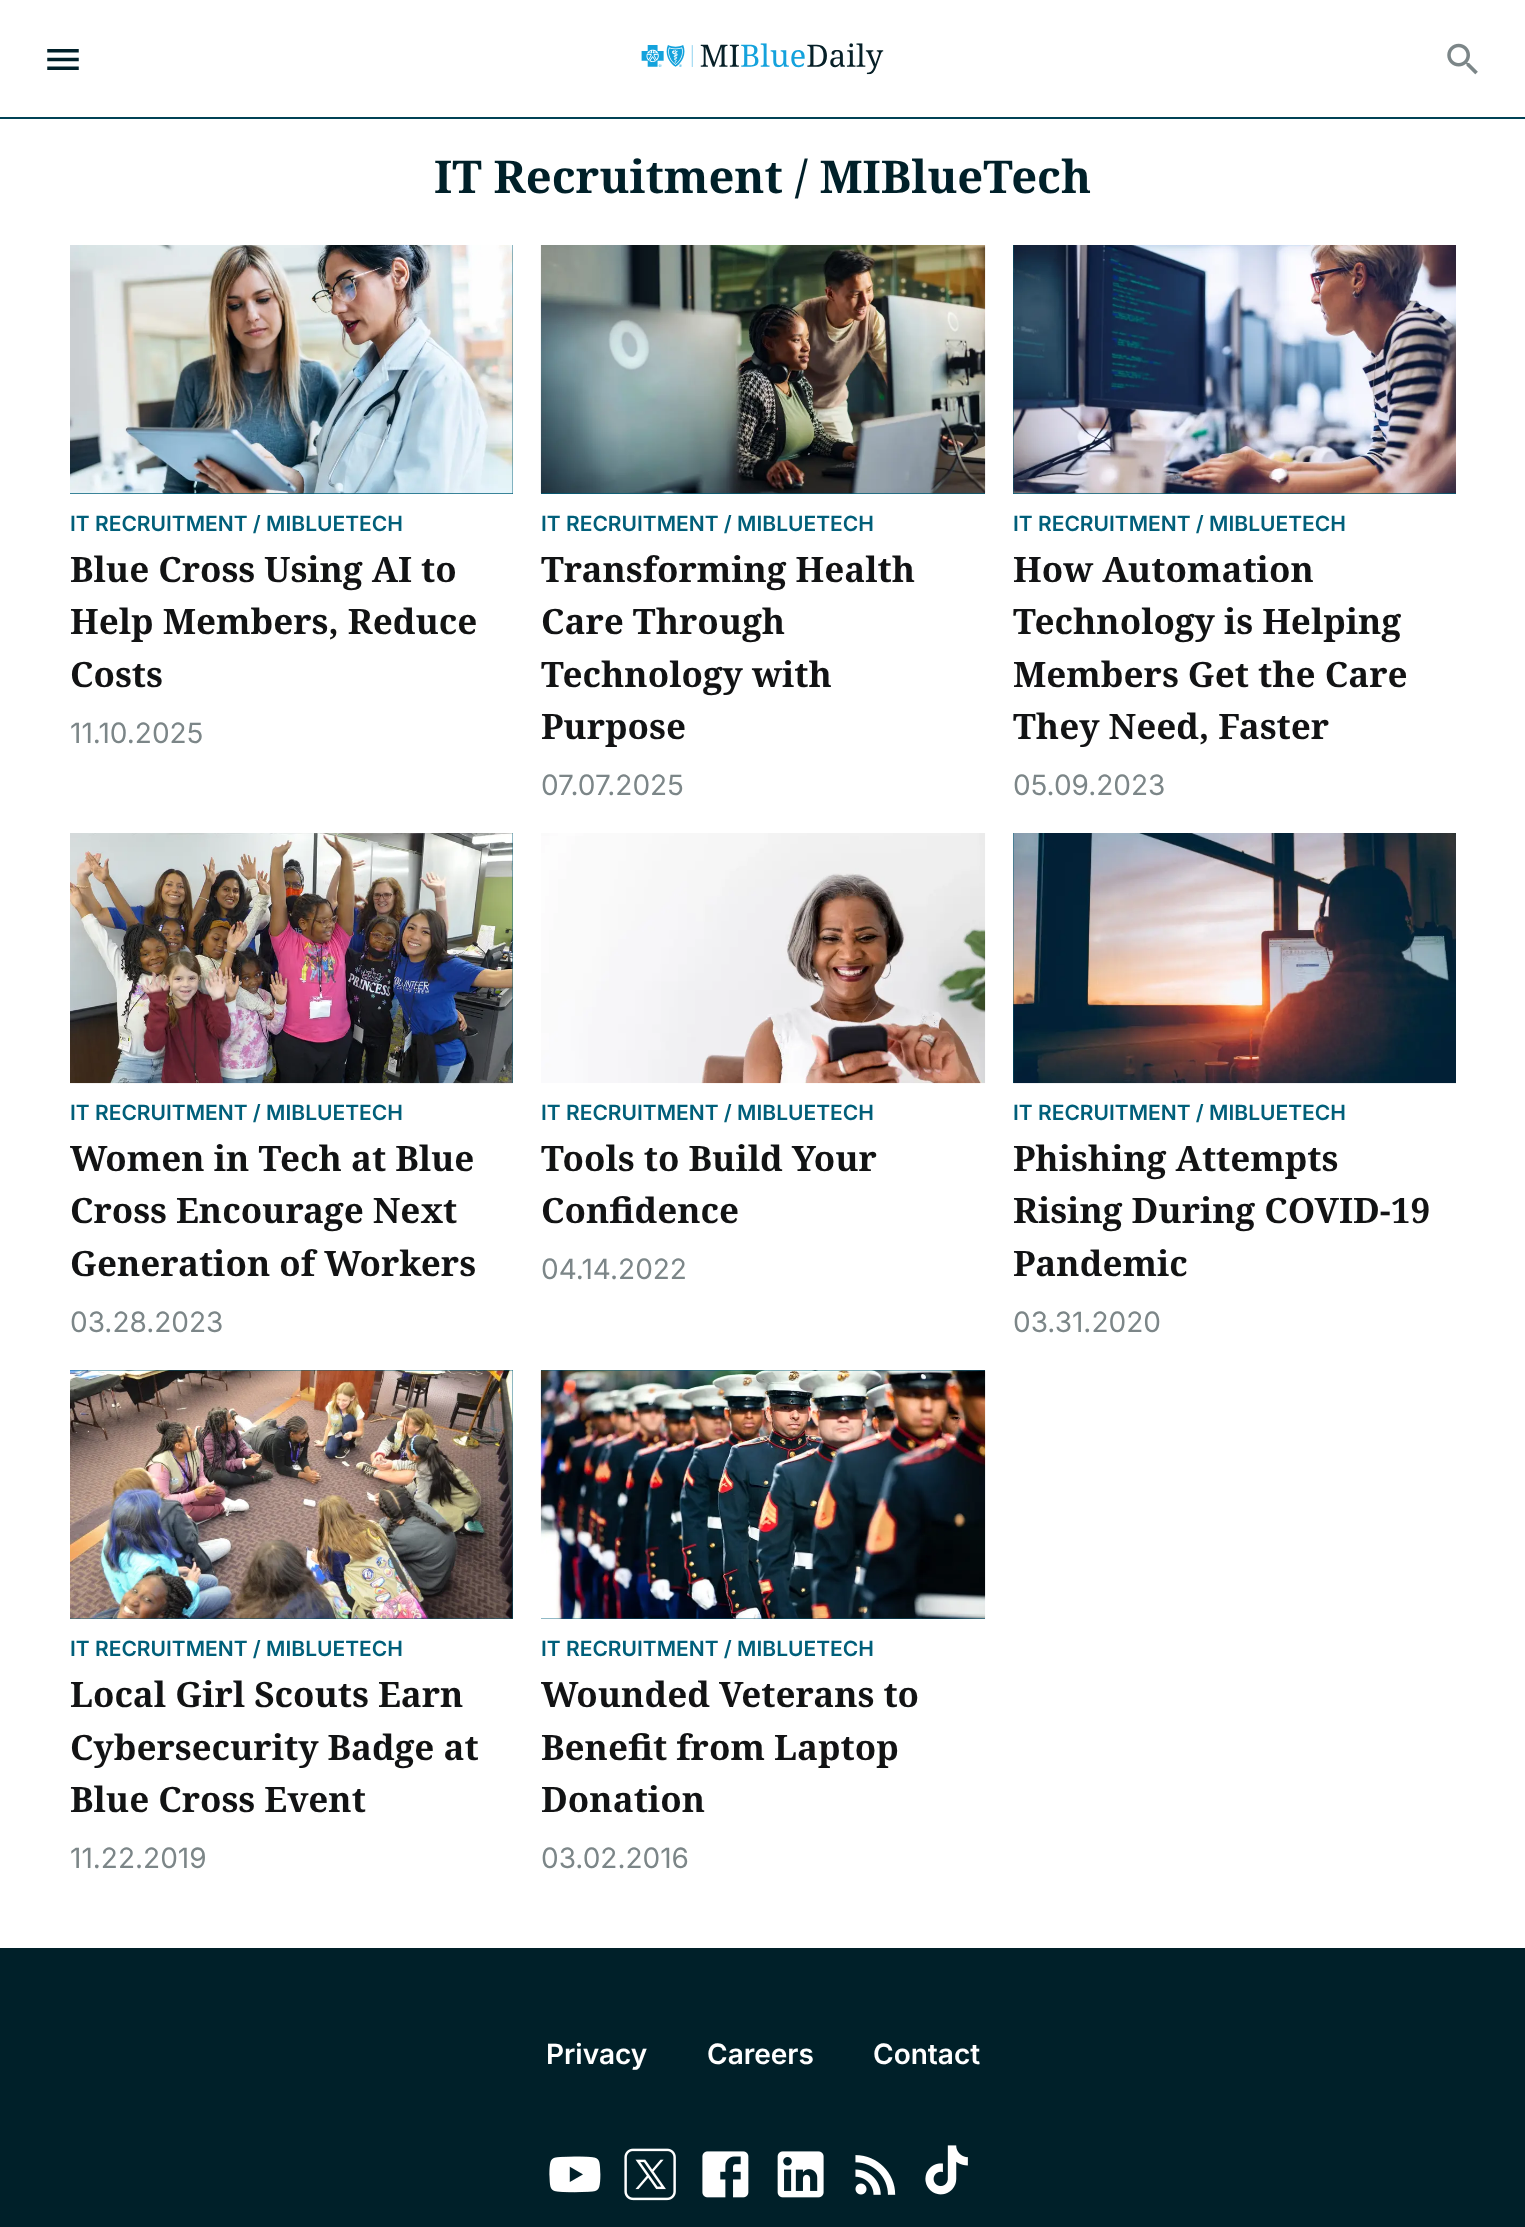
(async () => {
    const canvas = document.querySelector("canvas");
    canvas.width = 1525;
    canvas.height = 2227;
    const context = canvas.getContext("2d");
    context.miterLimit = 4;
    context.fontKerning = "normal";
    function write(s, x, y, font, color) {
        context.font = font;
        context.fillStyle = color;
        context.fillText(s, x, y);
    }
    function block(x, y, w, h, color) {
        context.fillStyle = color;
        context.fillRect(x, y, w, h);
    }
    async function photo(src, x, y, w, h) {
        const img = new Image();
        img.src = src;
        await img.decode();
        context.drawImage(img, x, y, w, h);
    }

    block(0, 0, 1525, 2227, "rgb(255, 255, 255)");
    block(0, 117, 1525, 2, "rgb(0, 66, 85)");
    await photo("media/1.png", 47, 49, 32, 21);
    await photo("media/2.png", 641, 43, 243, 32);
    await photo("media/3.png", 1447, 43, 31, 32);
    write("IT Recruitment / MIBlueTech", 434, 193, "bold 45.3px Noto Serif", "rgb(0, 32, 41)");
    block(70, 245, 443, 249, "rgb(0, 95, 122)");
    await photo("media/4.png", 70, 245, 443, 249);
    write("IT RECRUITMENT / MIBLUETECH", 70, 531, "600 21px Inter", "rgb(0, 95, 122)");
    write("Blue Cross Using AI to", 70, 582, "bold 35px Noto Serif", "rgb(18, 19, 20)");
    write("Help Members, Reduce", 70, 634, "bold 35px Noto Serif", "rgb(18, 19, 20)");
    write("Costs", 70, 687, "bold 35px Noto Serif", "rgb(18, 19, 20)");
    write("11.10.2025", 70, 743, "28px Inter", "rgb(124, 134, 136)");
    block(541, 493, 444, 1, "rgb(0, 95, 122)");
    await photo("media/5.png", 540, 245, 446, 249);
    write("IT RECRUITMENT / MIBLUETECH", 541, 531, "600 21px Inter", "rgb(0, 95, 122)");
    write("Transforming Health", 541, 582, "bold 35px Noto Serif", "rgb(18, 19, 20)");
    write("Care Through", 541, 634, "bold 35px Noto Serif", "rgb(18, 19, 20)");
    write("Technology with", 541, 687, "bold 35px Noto Serif", "rgb(18, 19, 20)");
    write("Purpose", 541, 739, "bold 35px Noto Serif", "rgb(18, 19, 20)");
    write("07.07.2025", 541, 795, "28px Inter", "rgb(124, 134, 136)");
    block(1013, 245, 443, 249, "rgb(0, 95, 122)");
    await photo("media/6.png", 1013, 245, 443, 249);
    write("IT RECRUITMENT / MIBLUETECH", 1013, 531, "600 21px Inter", "rgb(0, 95, 122)");
    write("How Automation", 1013, 582, "bold 35px Noto Serif", "rgb(18, 19, 20)");
    write("Technology is Helping", 1013, 634, "bold 35px Noto Serif", "rgb(18, 19, 20)");
    write("Members Get the Care", 1013, 687, "bold 35px Noto Serif", "rgb(18, 19, 20)");
    write("They Need, Faster", 1013, 739, "bold 35px Noto Serif", "rgb(18, 19, 20)");
    write("05.09.2023", 1013, 795, "28px Inter", "rgb(124, 134, 136)");
    block(512, 833, 1, 250, "rgb(0, 95, 122)");
    await photo("media/7.png", 70, 833, 443, 251);
    write("IT RECRUITMENT / MIBLUETECH", 70, 1120, "600 21px Inter", "rgb(0, 95, 122)");
    write("Women in Tech at Blue", 70, 1171, "bold 35px Noto Serif", "rgb(18, 19, 20)");
    write("Cross Encourage Next", 70, 1223, "bold 35px Noto Serif", "rgb(18, 19, 20)");
    write("Generation of Workers", 70, 1276, "bold 35px Noto Serif", "rgb(18, 19, 20)");
    write("03.28.2023", 70, 1332, "28px Inter", "rgb(124, 134, 136)");
    await photo("media/8.png", 541, 833, 445, 251);
    write("IT RECRUITMENT / MIBLUETECH", 541, 1120, "600 21px Inter", "rgb(0, 95, 122)");
    write("Tools to Build Your", 541, 1171, "bold 35px Noto Serif", "rgb(18, 19, 20)");
    write("Confidence", 541, 1223, "bold 35px Noto Serif", "rgb(18, 19, 20)");
    write("04.14.2022", 541, 1279, "28px Inter", "rgb(124, 134, 136)");
    block(1013, 833, 1, 250, "rgb(0, 95, 122)");
    await photo("media/9.png", 1013, 833, 443, 251);
    write("IT RECRUITMENT / MIBLUETECH", 1013, 1120, "600 21px Inter", "rgb(0, 95, 122)");
    write("Phishing Attempts", 1013, 1171, "bold 35px Noto Serif", "rgb(18, 19, 20)");
    write("Rising During COVID-19", 1013, 1223, "bold 35px Noto Serif", "rgb(18, 19, 20)");
    write("Pandemic", 1013, 1276, "bold 35px Noto Serif", "rgb(18, 19, 20)");
    write("03.31.2020", 1013, 1332, "28px Inter", "rgb(124, 134, 136)");
    block(70, 1370, 443, 249, "rgb(0, 95, 122)");
    await photo("media/10.png", 70, 1370, 443, 249);
    write("IT RECRUITMENT / MIBLUETECH", 70, 1656, "600 21px Inter", "rgb(0, 95, 122)");
    write("Local Girl Scouts Earn", 70, 1707, "bold 35px Noto Serif", "rgb(18, 19, 20)");
    write("Cybersecurity Badge at", 70, 1760, "bold 35px Noto Serif", "rgb(18, 19, 20)");
    write("Blue Cross Event", 70, 1812, "bold 35px Noto Serif", "rgb(18, 19, 20)");
    write("11.22.2019", 70, 1868, "28px Inter", "rgb(124, 134, 136)");
    block(541, 1370, 444, 249, "rgb(0, 95, 122)");
    await photo("media/11.png", 540, 1370, 446, 249);
    write("IT RECRUITMENT / MIBLUETECH", 541, 1656, "600 21px Inter", "rgb(0, 95, 122)");
    write("Wounded Veterans to", 541, 1707, "bold 35px Noto Serif", "rgb(18, 19, 20)");
    write("Benefit from Laptop", 541, 1760, "bold 35px Noto Serif", "rgb(18, 19, 20)");
    write("Donation", 541, 1812, "bold 35px Noto Serif", "rgb(18, 19, 20)");
    write("03.02.2016", 541, 1868, "28px Inter", "rgb(124, 134, 136)");
    block(0, 1948, 1525, 279, "rgb(0, 32, 41)");
    write("Privacy", 546, 2064, "600 28px Inter", "rgb(255, 255, 255)");
    write("Careers", 707, 2064, "600 28px Inter", "rgb(255, 255, 255)");
    write("Contact", 873, 2064, "600 28px Inter", "rgb(255, 255, 255)");
    await photo("media/12.png", 549, 2156, 52, 37);
    await photo("media/13.png", 624, 2148, 52, 53);
    await photo("media/14.png", 702, 2151, 47, 47);
    await photo("media/15.png", 777, 2151, 47, 47);
    await photo("media/16.png", 855, 2155, 41, 40);
    await photo("media/17.png", 925, 2145, 43, 50);
})();
